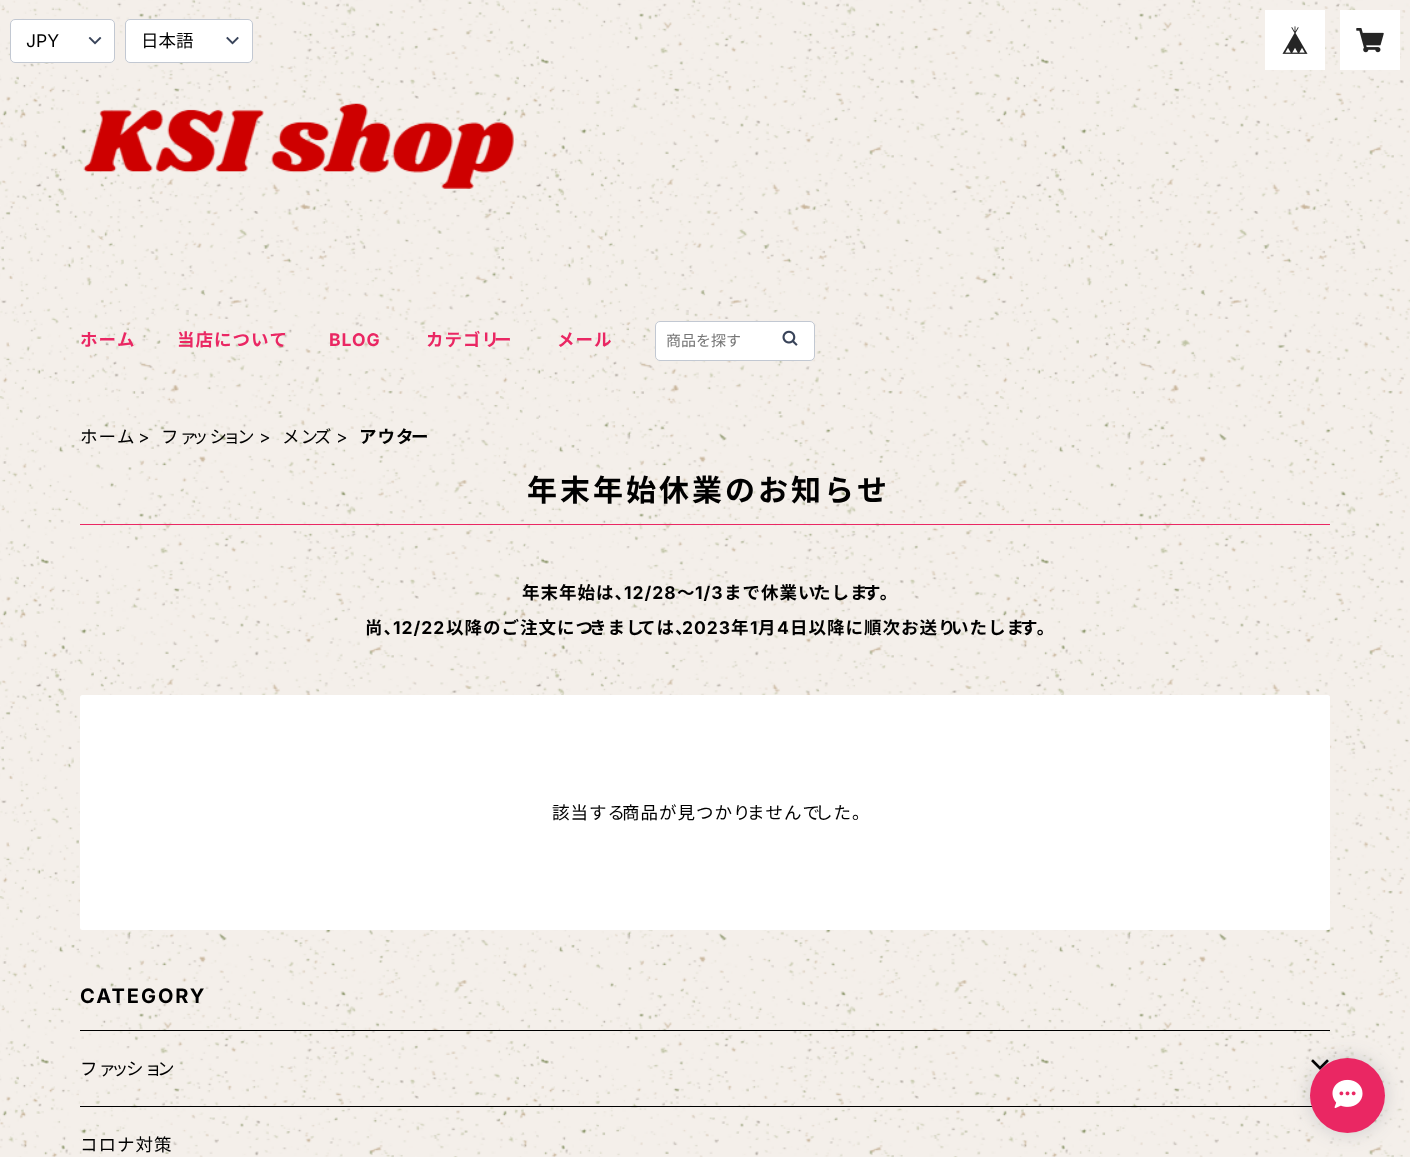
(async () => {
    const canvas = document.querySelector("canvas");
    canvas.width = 1410;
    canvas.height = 1157;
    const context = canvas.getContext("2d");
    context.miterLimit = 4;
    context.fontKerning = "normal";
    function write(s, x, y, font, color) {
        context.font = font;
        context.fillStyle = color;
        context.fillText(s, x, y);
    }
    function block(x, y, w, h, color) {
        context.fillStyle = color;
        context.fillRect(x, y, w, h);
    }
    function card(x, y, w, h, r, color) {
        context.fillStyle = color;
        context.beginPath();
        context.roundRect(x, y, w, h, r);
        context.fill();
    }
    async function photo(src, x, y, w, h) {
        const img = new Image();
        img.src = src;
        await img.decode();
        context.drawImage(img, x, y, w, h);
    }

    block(0, 0, 1410, 1157, "rgb(255, 255, 255)");
    await photo("media/1.png", 0, 0, 1410, 1157);
    context.beginPath();
    context.roundRect(10.5, 19.5, 104, 43, 4.5);
    context.fill();
    context.strokeStyle = "rgb(194, 200, 210)";
    context.stroke();
    write("JPY", 26, 47, "17.5px Inter", "rgb(0, 0, 0)");
    await photo("media/2.png", 88, 37, 14, 8);
    context.fillStyle = "rgb(255, 255, 255)";
    context.beginPath();
    context.roundRect(125.5, 19.5, 127, 43, 4.5);
    context.fill();
    context.stroke();
    write("日本語", 141, 47, "17.5px Noto Sans JP", "rgb(0, 0, 0)");
    await photo("media/3.png", 226, 36, 13, 9);
    block(1265, 10, 60, 60, "rgb(255, 255, 255)");
    await photo("media/4.png", 1282, 26, 26, 28);
    block(1340, 10, 60, 60, "rgb(255, 255, 255)");
    await photo("media/5.png", 1356, 28, 28, 25);
    await photo("media/6.png", 83, 103, 431, 86);
    context.letterSpacing = "1px";
    write("ホーム", 80, 346, "bold 17.5px Noto Sans JP", "rgb(234, 39, 99)");
    write("当店について", 177, 346, "bold 17.5px Noto Sans JP", "rgb(234, 39, 99)");
    write("BLOG", 329, 346, "bold 17.5px Inter", "rgb(234, 39, 99)");
    write("カテゴリ", 426, 346, "bold 17.5px Noto Sans JP", "rgb(234, 39, 99)");
    write("ー", 494, 346, "bold 17.5px Noto Sans JP", "rgb(234, 39, 99)");
    write("メール", 557, 346, "bold 17.5px Noto Sans JP", "rgb(234, 39, 99)");
    context.fillStyle = "rgb(255, 255, 255)";
    context.beginPath();
    context.roundRect(655.5, 321.5, 159, 39, 4.5);
    context.fill();
    context.stroke();
    context.letterSpacing = "0px";
    write("商品を探す", 666, 346, "15px Noto Sans JP", "rgb(117, 117, 117)");
    await photo("media/7.png", 782, 330, 16, 16);
    context.letterSpacing = "1px";
    write("ホーム", 80, 443, "17.5px Noto Sans JP", "rgb(0, 0, 0)");
    write(">", 138, 443, "17.5px Inter", "rgb(0, 0, 0)");
    write("ファ", 161, 443, "17.5px Noto Sans JP", "rgb(0, 0, 0)");
    write("ッシ", 191, 443, "17.5px Noto Sans JP", "rgb(0, 0, 0)");
    write("ョ", 223, 443, "17.5px Noto Sans JP", "rgb(0, 0, 0)");
    write("ン", 237, 443, "17.5px Noto Sans JP", "rgb(0, 0, 0)");
    write(">", 259, 443, "17.5px Inter", "rgb(0, 0, 0)");
    write("メン", 282, 443, "17.5px Noto Sans JP", "rgb(0, 0, 0)");
    write("ズ", 314, 443, "17.5px Noto Sans JP", "rgb(0, 0, 0)");
    write(">", 336, 443, "17.5px Inter", "rgb(0, 0, 0)");
    write("アウタ", 359, 443, "bold 17.5px Noto Sans JP", "rgb(0, 0, 0)");
    write("ー", 411, 443, "bold 17.5px Noto Sans JP", "rgb(0, 0, 0)");
    block(80, 524, 1250, 1, "rgb(234, 39, 99)");
    context.letterSpacing = "3px";
    write("年末年始休業のお知らせ", 527, 501, "bold 30px Noto Sans JP", "rgb(0, 0, 0)");
    context.letterSpacing = "1px";
    write("年末年始は、", 522, 599, "bold 17.5px Noto Sans JP", "rgb(0, 0, 0)");
    write("12/28", 624, 599, "bold 17.5px Inter", "rgb(0, 0, 0)");
    write("～", 677, 599, "bold 17.5px Noto Sans JP", "rgb(0, 0, 0)");
    write("1/3", 695, 599, "bold 17.5px Inter", "rgb(0, 0, 0)");
    write("まで休業い", 724, 599, "bold 17.5px Noto Sans JP", "rgb(0, 0, 0)");
    write("たしま", 813, 599, "bold 17.5px Noto Sans JP", "rgb(0, 0, 0)");
    write("す。", 863, 599, "bold 17.5px Noto Sans JP", "rgb(0, 0, 0)");
    write("尚、", 365, 634, "bold 17.5px Noto Sans JP", "rgb(0, 0, 0)");
    write("12/22", 393, 634, "bold 17.5px Inter", "rgb(0, 0, 0)");
    write("以降のご注文につ", 446, 634, "bold 17.5px Noto Sans JP", "rgb(0, 0, 0)");
    write("きまし", 589, 634, "bold 17.5px Noto Sans JP", "rgb(0, 0, 0)");
    write("ては、", 638, 634, "bold 17.5px Noto Sans JP", "rgb(0, 0, 0)");
    write("2023", 682, 634, "bold 17.5px Inter", "rgb(0, 0, 0)");
    write("年", 731, 634, "bold 17.5px Noto Sans JP", "rgb(0, 0, 0)");
    write("1", 750, 634, "bold 17.5px Inter", "rgb(0, 0, 0)");
    write("月", 758, 634, "bold 17.5px Noto Sans JP", "rgb(0, 0, 0)");
    write("4", 777, 634, "bold 17.5px Inter", "rgb(0, 0, 0)");
    write("日以降に順次お送り", 790, 634, "bold 17.5px Noto Sans JP", "rgb(0, 0, 0)");
    write("いたしま", 951, 634, "bold 17.5px Noto Sans JP", "rgb(0, 0, 0)");
    write("す。", 1020, 634, "bold 17.5px Noto Sans JP", "rgb(0, 0, 0)");
    card(80, 695, 1250, 235, 2.5, "rgb(255, 255, 255)");
    write("該当する", 552, 819, "17.5px Noto Sans JP", "rgb(0, 0, 0)");
    write("商品が見つかり", 622, 819, "17.5px Noto Sans JP", "rgb(0, 0, 0)");
    write("ませんで", 747, 819, "17.5px Noto Sans JP", "rgb(0, 0, 0)");
    write("した。", 815, 819, "17.5px Noto Sans JP", "rgb(0, 0, 0)");
    context.letterSpacing = "2px";
    write("CATEGORY", 80, 1003, "bold 20px Inter", "rgb(0, 0, 0)");
    block(80, 1030, 1250, 1, "rgb(0, 0, 0)");
    context.letterSpacing = "1px";
    write("ファ", 80, 1075, "17.5px Noto Sans JP", "rgb(0, 0, 0)");
    write("ッ", 111, 1075, "17.5px Noto Sans JP", "rgb(0, 0, 0)");
    write("ショ", 126, 1075, "17.5px Noto Sans JP", "rgb(0, 0, 0)");
    write("ン", 157, 1075, "17.5px Noto Sans JP", "rgb(0, 0, 0)");
    await photo("media/8.png", 1311, 1059, 18, 11);
    block(80, 1106, 1232, 1, "rgb(0, 0, 0)");
    write("コロナ対策", 80, 1151, "17.5px Noto Sans JP", "rgb(0, 0, 0)");
    context.fillStyle = "rgba(51, 66, 88, 0.2)";
    context.filter = "blur(9.5px)";
    context.beginPath();
    context.roundRect(1310, 1058, 75, 75, 37.5);
    context.fill();
    context.filter = "none";
    context.fillStyle = "rgb(234, 39, 99)";
    context.beginPath();
    context.arc(1347.5, 1095.5, 37.5, 0, Math.PI * 2);
    context.fill();
    await photo("media/9.png", 1332, 1079, 31, 30);
})();
